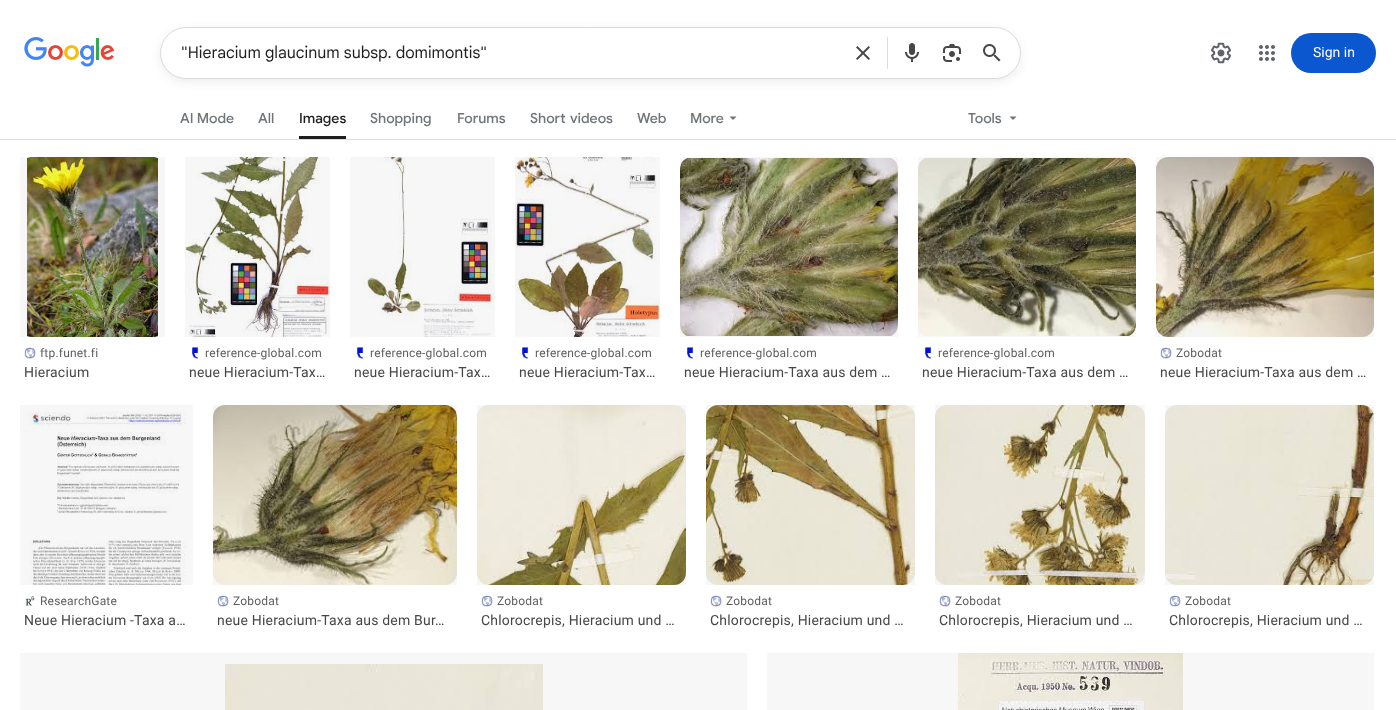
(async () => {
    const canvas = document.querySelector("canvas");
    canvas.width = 1396;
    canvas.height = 710;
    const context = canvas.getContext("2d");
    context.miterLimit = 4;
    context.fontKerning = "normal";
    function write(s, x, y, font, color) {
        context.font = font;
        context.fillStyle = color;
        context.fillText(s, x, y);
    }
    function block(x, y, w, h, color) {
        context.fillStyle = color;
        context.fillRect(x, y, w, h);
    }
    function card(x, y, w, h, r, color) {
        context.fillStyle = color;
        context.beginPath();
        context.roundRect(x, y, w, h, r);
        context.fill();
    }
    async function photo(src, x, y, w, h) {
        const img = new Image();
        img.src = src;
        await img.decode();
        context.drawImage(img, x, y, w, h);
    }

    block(0, 0, 1396, 710, "rgb(255, 255, 255)");
    await photo("media/1.png", 24, 37, 90, 30);
    context.fillStyle = "rgba(31, 31, 31, 0.08)";
    context.filter = "blur(5px)";
    context.beginPath();
    context.roundRect(160, 30, 861, 52, 26);
    context.fill();
    context.filter = "none";
    context.fillStyle = "rgb(255, 255, 255)";
    context.beginPath();
    context.roundRect(160.5, 27.5, 860, 51, 25.5);
    context.fill();
    context.strokeStyle = "rgb(218, 220, 224)";
    context.stroke();
    write("\"Hieracium glaucinum subsp. domimontis\"", 181, 58, "16px Google Sans", "rgb(31, 31, 31)");
    await photo("media/2.png", 856, 46, 14, 14);
    block(887, 37, 1, 32, "rgb(218, 220, 224)");
    await photo("media/3.png", 905, 43, 14, 19);
    await photo("media/4.png", 943, 44, 18, 18);
    await photo("media/5.png", 983, 44, 18, 18);
    await photo("media/6.png", 1211, 42, 20, 22);
    await photo("media/7.png", 1259, 45, 16, 16);
    card(1291, 33, 85, 40, 20, "rgb(11, 87, 208)");
    write("Sign in", 1313, 57, "14px Roboto", "rgb(255, 255, 255)");
    write("AI Mode", 180, 123, "500 14px Google Sans", "rgb(112, 117, 122)");
    write("All", 258, 123, "500 14px Google Sans", "rgb(112, 117, 122)");
    block(299, 136, 47, 3, "rgb(31, 31, 31)");
    write("Images", 299, 123, "500 14px Google Sans", "rgb(31, 31, 31)");
    write("Shopping", 370, 123, "500 14px Google Sans", "rgb(112, 117, 122)");
    write("Forums", 457, 123, "500 14px Google Sans", "rgb(112, 117, 122)");
    context.wordSpacing = "1px";
    write("Short videos", 530, 123, "500 14px Google Sans", "rgb(112, 117, 122)");
    context.wordSpacing = "0px";
    write("Web", 637, 123, "500 14px Google Sans", "rgb(112, 117, 122)");
    write("More", 690, 123, "500 14px Google Sans", "rgb(112, 117, 122)");
    context.beginPath();
    context.moveTo(729.5, 116.5);
    context.lineTo(733, 120);
    context.lineTo(736.5, 116.5);
    context.closePath();
    context.fill();
    write("Tools", 968, 123, "500 14px Google Sans", "rgb(112, 117, 122)");
    context.beginPath();
    context.moveTo(1009.5, 116.5);
    context.lineTo(1013, 120);
    context.lineTo(1016.5, 116.5);
    context.closePath();
    context.fill();
    block(0, 139, 1396, 1, "rgb(218, 220, 224)");
    await photo("media/8.png", 27, 157, 131, 180);
    block(20, 157, 145, 180, "rgba(0, 0, 0, 0.03)");
    await photo("media/9.png", 24, 347, 12, 12);
    context.letterSpacing = "0.2px";
    write("ftp.funet.fi", 40, 357, "12px Roboto", "rgb(94, 94, 94)");
    write("Hieracium", 24, 377, "14px Roboto", "rgb(71, 71, 71)");
    await photo("media/10.png", 185, 157, 145, 180);
    block(185, 157, 145, 180, "rgba(0, 0, 0, 0.03)");
    await photo("media/11.png", 192, 347, 6, 12);
    write("reference-global.com", 205, 357, "12px Roboto", "rgb(94, 94, 94)");
    write("neue Hieracium-Tax…", 189, 377, "14px Roboto", "rgb(71, 71, 71)");
    await photo("media/12.png", 362, 157, 133, 180);
    block(350, 157, 145, 180, "rgba(0, 0, 0, 0.03)");
    await photo("media/13.png", 357, 347, 6, 12);
    write("reference-global.com", 370, 357, "12px Roboto", "rgb(94, 94, 94)");
    write("neue Hieracium-Tax…", 354, 377, "14px Roboto", "rgb(71, 71, 71)");
    await photo("media/14.png", 515, 157, 145, 180);
    block(515, 157, 145, 180, "rgba(0, 0, 0, 0.03)");
    await photo("media/15.png", 522, 347, 6, 12);
    write("reference-global.com", 535, 357, "12px Roboto", "rgb(94, 94, 94)");
    write("neue Hieracium-Tax…", 519, 377, "14px Roboto", "rgb(71, 71, 71)");
    await photo("media/16.png", 680, 158, 218, 178);
    block(680, 157, 218, 180, "rgba(0, 0, 0, 0.03)");
    await photo("media/15.png", 687, 347, 6, 12);
    write("reference-global.com", 700, 357, "12px Roboto", "rgb(94, 94, 94)");
    write("neue Hieracium-Taxa aus dem …", 684, 377, "14px Roboto", "rgb(71, 71, 71)");
    await photo("media/17.png", 918, 158, 218, 178);
    block(918, 157, 218, 180, "rgba(0, 0, 0, 0.03)");
    await photo("media/13.png", 925, 347, 6, 12);
    write("reference-global.com", 938, 357, "12px Roboto", "rgb(94, 94, 94)");
    write("neue Hieracium-Taxa aus dem …", 922, 377, "14px Roboto", "rgb(71, 71, 71)");
    await photo("media/18.png", 1156, 157, 218, 180);
    block(1156, 157, 218, 180, "rgba(0, 0, 0, 0.03)");
    await photo("media/9.png", 1160, 347, 12, 12);
    write("Zobodat", 1176, 357, "12px Roboto", "rgb(94, 94, 94)");
    write("neue Hieracium-Taxa aus dem …", 1160, 377, "14px Roboto", "rgb(71, 71, 71)");
    await photo("media/19.png", 23, 405, 163, 180);
    block(20, 405, 173, 180, "rgba(0, 0, 0, 0.03)");
    await photo("media/20.png", 25, 596, 10, 10);
    write("ResearchGate", 40, 605, "12px Roboto", "rgb(94, 94, 94)");
    write("Neue Hieracium -Taxa a…", 24, 625, "14px Roboto", "rgb(71, 71, 71)");
    await photo("media/21.png", 213, 405, 244, 180);
    block(213, 405, 244, 180, "rgba(0, 0, 0, 0.03)");
    await photo("media/22.png", 217, 595, 12, 12);
    write("Zobodat", 233, 605, "12px Roboto", "rgb(94, 94, 94)");
    write("neue Hieracium-Taxa aus dem Bur…", 217, 625, "14px Roboto", "rgb(71, 71, 71)");
    await photo("media/23.png", 477, 405, 209, 180);
    block(477, 405, 209, 180, "rgba(0, 0, 0, 0.03)");
    await photo("media/24.png", 481, 595, 12, 12);
    write("Zobodat", 497, 605, "12px Roboto", "rgb(94, 94, 94)");
    write("Chlorocrepis, Hieracium und …", 481, 625, "14px Roboto", "rgb(71, 71, 71)");
    await photo("media/25.png", 706, 405, 209, 180);
    block(706, 405, 209, 180, "rgba(0, 0, 0, 0.03)");
    await photo("media/22.png", 710, 595, 12, 12);
    write("Zobodat", 726, 605, "12px Roboto", "rgb(94, 94, 94)");
    write("Chlorocrepis, Hieracium und …", 710, 625, "14px Roboto", "rgb(71, 71, 71)");
    await photo("media/26.png", 935, 405, 210, 180);
    block(935, 405, 210, 180, "rgba(0, 0, 0, 0.03)");
    await photo("media/9.png", 939, 595, 12, 12);
    write("Zobodat", 955, 605, "12px Roboto", "rgb(94, 94, 94)");
    write("Chlorocrepis, Hieracium und …", 939, 625, "14px Roboto", "rgb(71, 71, 71)");
    await photo("media/27.png", 1165, 405, 209, 180);
    block(1165, 405, 209, 180, "rgba(0, 0, 0, 0.03)");
    await photo("media/9.png", 1169, 595, 12, 12);
    write("Zobodat", 1185, 605, "12px Roboto", "rgb(94, 94, 94)");
    write("Chlorocrepis, Hieracium und …", 1169, 625, "14px Roboto", "rgb(71, 71, 71)");
    await photo("media/28.png", 225, 664, 318, 46);
    block(20, 653, 727, 57, "rgba(0, 0, 0, 0.03)");
    await photo("media/29.png", 958, 653, 225, 57);
    block(767, 653, 607, 57, "rgba(0, 0, 0, 0.03)");
})();
